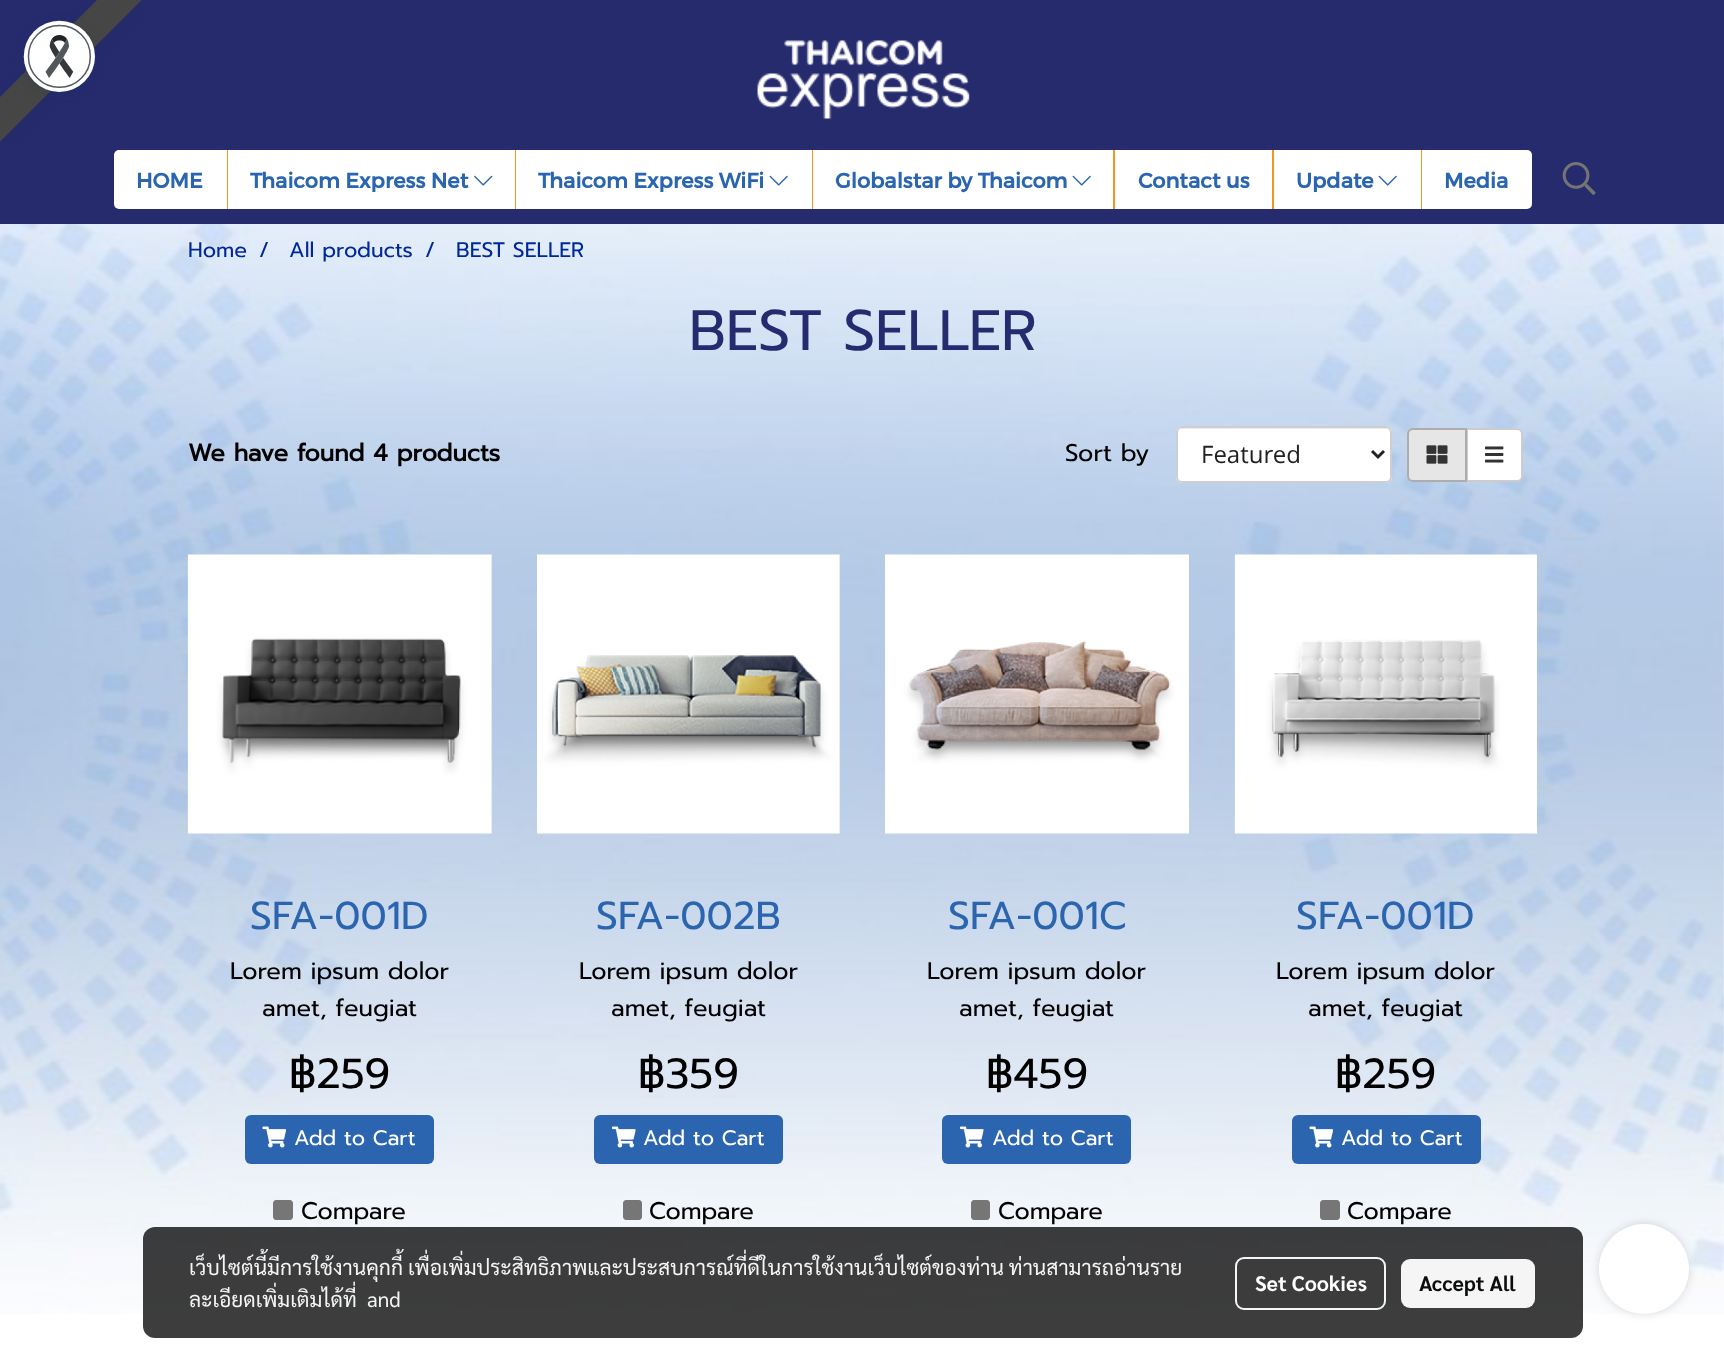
(async () => {
    const canvas = document.querySelector("canvas");
    canvas.width = 1724;
    canvas.height = 1349;
    const context = canvas.getContext("2d");
    context.miterLimit = 4;
    context.fontKerning = "normal";
    function write(s, x, y, font, color) {
        context.font = font;
        context.fillStyle = color;
        context.fillText(s, x, y);
    }
    function block(x, y, w, h, color) {
        context.fillStyle = color;
        context.fillRect(x, y, w, h);
    }
    function card(x, y, w, h, r, color) {
        context.fillStyle = color;
        context.beginPath();
        context.roundRect(x, y, w, h, r);
        context.fill();
    }
    async function photo(src, x, y, w, h) {
        const img = new Image();
        img.src = src;
        await img.decode();
        context.drawImage(img, x, y, w, h);
    }

    block(0, 0, 1724, 1349, "rgb(255, 255, 255)");
    await photo("media/1.png", 0, 224, 1724, 1090);
    block(0, 0, 1724, 224, "rgb(38, 43, 109)");
    await photo("media/2.png", 0, 0, 142, 142);
    await photo("media/3.png", 757, 40, 213, 79);
    block(227, 150, 1, 59, "rgb(247, 148, 29)");
    context.fillStyle = "rgb(255, 255, 255)";
    context.beginPath();
    context.roundRect(114, 150, 113, 59, [5, 0, 0, 5]);
    context.fill();
    write("HOME", 136, 188, "bold 21px Montserrat", "rgb(43, 101, 176)");
    block(515, 150, 1, 59, "rgb(247, 148, 29)");
    block(228, 150, 287, 59, "rgb(255, 255, 255)");
    write("Thaicom Express Net", 250, 188, "bold 21px Montserrat", "rgb(43, 101, 176)");
    await photo("media/4.png", 474, 175, 19, 11);
    block(812, 150, 1, 59, "rgb(247, 148, 29)");
    block(516, 150, 296, 59, "rgb(255, 255, 255)");
    write("Thaicom Express WiFi", 538, 188, "bold 21px Montserrat", "rgb(43, 101, 176)");
    await photo("media/5.png", 769, 175, 19, 11);
    block(1113, 150, 2, 59, "rgb(247, 148, 29)");
    block(813, 150, 300, 59, "rgb(255, 255, 255)");
    write("Globalstar by Thaicom", 835, 188, "bold 21px Montserrat", "rgb(43, 101, 176)");
    await photo("media/5.png", 1072, 175, 19, 11);
    block(1272, 150, 2, 59, "rgb(247, 148, 29)");
    block(1115, 150, 157, 59, "rgb(255, 255, 255)");
    write("Contact us", 1138, 188, "bold 21px Montserrat", "rgb(43, 101, 176)");
    block(1421, 150, 1, 59, "rgb(247, 148, 29)");
    block(1274, 150, 147, 59, "rgb(255, 255, 255)");
    write("Update", 1296, 188, "bold 21px Montserrat", "rgb(43, 101, 176)");
    await photo("media/5.png", 1378, 175, 19, 11);
    context.fillStyle = "rgb(255, 255, 255)";
    context.beginPath();
    context.roundRect(1422, 150, 110, 59, [0, 5, 5, 0]);
    context.fill();
    write("Media", 1444, 188, "bold 21px Montserrat", "rgb(43, 101, 176)");
    await photo("media/6.png", 1562, 162, 34, 33);
    write("Home", 188, 257, "21px Prompt", "rgb(0, 40, 153)");
    write("/", 259, 257, "21px Prompt", "rgb(0, 40, 153)");
    write("All products", 289, 257, "21px Prompt", "rgb(0, 40, 153)");
    write("/", 425, 257, "21px Prompt", "rgb(0, 40, 153)");
    write("BEST SELLER", 456, 257, "21px Prompt", "rgb(0, 40, 153)");
    write("BEST SELLER", 689, 350, "57px Prompt", "rgb(37, 43, 110)");
    write("We have found 4 products", 188, 461, "bold 24px Prompt", "rgb(0, 0, 0)");
    write("Sort by", 1065, 461, "24px Prompt", "rgb(0, 0, 0)");
    card(1176, 426, 216, 57, 6, "rgb(255, 255, 255)");
    context.fillStyle = "rgb(236, 236, 236)";
    context.beginPath();
    context.moveTo(1182, 429);
    context.lineTo(1386, 429);
    context.bezierCurveTo(1388, 429, 1390, 431, 1390, 434);
    context.lineTo(1390, 478);
    context.lineTo(1389, 481);
    context.bezierCurveTo(1390, 480, 1391, 478, 1391, 477);
    context.lineTo(1391, 433);
    context.bezierCurveTo(1391, 430, 1389, 428, 1386, 428);
    context.lineTo(1183, 428);
    context.bezierCurveTo(1180, 428, 1178, 430, 1178, 433);
    context.lineTo(1178, 434);
    context.bezierCurveTo(1178, 431, 1180, 429, 1182, 429);
    context.closePath();
    context.fill();
    context.beginPath();
    context.roundRect(1177, 427, 214, 55, 5);
    context.strokeStyle = "rgb(205, 206, 210)";
    context.lineWidth = 2;
    context.stroke();
    context.beginPath();
    context.moveTo(1372, 451);
    context.lineTo(1378, 457);
    context.lineTo(1384, 451);
    context.strokeStyle = "rgb(33, 33, 33)";
    context.lineWidth = 3;
    context.stroke();
    write("Featured", 1201, 463, "24px Open Sans", "rgb(33, 33, 33)");
    context.fillStyle = "rgb(255, 255, 255)";
    context.beginPath();
    context.roundRect(1467, 429, 55, 52, [0, 5, 5, 0]);
    context.fill();
    context.strokeStyle = "rgb(204, 204, 204)";
    context.lineWidth = 2;
    context.stroke();
    context.fillStyle = "rgb(230, 230, 230)";
    context.beginPath();
    context.roundRect(1408, 429, 58, 52, [5, 0, 0, 5]);
    context.fill();
    context.strokeStyle = "rgb(173, 173, 173)";
    context.stroke();
    await photo("media/7.png", 1426, 445, 22, 19);
    await photo("media/8.png", 1485, 446, 19, 17);
    await photo("media/9.png", 187, 554, 305, 280);
    write("SFA-001D", 250, 929, "39px Prompt", "rgb(43, 101, 176)");
    write("Lorem ipsum dolor", 230, 979, "24px Prompt", "rgb(0, 0, 0)");
    write("amet, feugiat", 262, 1016, "24px Prompt", "rgb(0, 0, 0)");
    write("฿259", 289, 1088, "42px Prompt", "rgb(0, 0, 0)");
    card(245, 1115, 189, 49, 6, "rgb(43, 101, 176)");
    await photo("media/10.png", 262, 1126, 25, 22);
    write("Add to Cart", 294, 1145, "21px Prompt", "rgb(255, 255, 255)");
    context.fillStyle = "rgb(118, 118, 118)";
    context.beginPath();
    context.moveTo(276, 1200);
    context.lineTo(290, 1200);
    context.bezierCurveTo(291.5, 1200, 293, 1201.5, 293, 1203);
    context.lineTo(293, 1217);
    context.bezierCurveTo(293, 1218.5, 291.5, 1220, 290, 1220);
    context.lineTo(276, 1220);
    context.bezierCurveTo(274.5, 1220, 273, 1218.5, 273, 1217);
    context.lineTo(273, 1203);
    context.bezierCurveTo(273, 1201.5, 274.5, 1200, 276, 1200);
    context.closePath();
    context.fill();
    write("Compare", 301, 1219, "24px Prompt", "rgb(0, 0, 0)");
    await photo("media/11.png", 537, 554, 303, 280);
    write("SFA-002B", 596, 929, "39px Prompt", "rgb(43, 101, 176)");
    write("Lorem ipsum dolor", 579, 979, "24px Prompt", "rgb(0, 0, 0)");
    write("amet, feugiat", 611, 1016, "24px Prompt", "rgb(0, 0, 0)");
    write("฿359", 638, 1088, "42px Prompt", "rgb(0, 0, 0)");
    card(594, 1115, 189, 49, 6, "rgb(43, 101, 176)");
    await photo("media/12.png", 612, 1126, 24, 22);
    write("Add to Cart", 643, 1145, "21px Prompt", "rgb(255, 255, 255)");
    context.fillStyle = "rgb(118, 118, 118)";
    context.beginPath();
    context.moveTo(626, 1200);
    context.lineTo(639, 1200);
    context.bezierCurveTo(640.5, 1200, 642, 1201.5, 642, 1203);
    context.lineTo(642, 1217);
    context.bezierCurveTo(642, 1218.5, 640.5, 1220, 639, 1220);
    context.lineTo(626, 1220);
    context.bezierCurveTo(624.5, 1220, 623, 1218.5, 623, 1217);
    context.lineTo(623, 1203);
    context.bezierCurveTo(623, 1201.5, 624.5, 1200, 626, 1200);
    context.closePath();
    context.fill();
    write("Compare", 649, 1219, "24px Prompt", "rgb(0, 0, 0)");
    await photo("media/13.png", 885, 554, 304, 280);
    write("SFA-001C", 948, 929, "39px Prompt", "rgb(43, 101, 176)");
    write("Lorem ipsum dolor", 927, 979, "24px Prompt", "rgb(0, 0, 0)");
    write("amet, feugiat", 959, 1016, "24px Prompt", "rgb(0, 0, 0)");
    write("฿459", 986, 1088, "42px Prompt", "rgb(0, 0, 0)");
    card(942, 1115, 189, 49, 6, "rgb(43, 101, 176)");
    await photo("media/12.png", 960, 1126, 24, 22);
    write("Add to Cart", 992, 1145, "21px Prompt", "rgb(255, 255, 255)");
    context.fillStyle = "rgb(118, 118, 118)";
    context.beginPath();
    context.moveTo(974, 1200);
    context.lineTo(987, 1200);
    context.bezierCurveTo(988.5, 1200, 990, 1201.5, 990, 1203);
    context.lineTo(990, 1217);
    context.bezierCurveTo(990, 1218.5, 988.5, 1220, 987, 1220);
    context.lineTo(974, 1220);
    context.bezierCurveTo(972.5, 1220, 971, 1218.5, 971, 1217);
    context.lineTo(971, 1203);
    context.bezierCurveTo(971, 1201.5, 972.5, 1200, 974, 1200);
    context.closePath();
    context.fill();
    write("Compare", 998, 1219, "24px Prompt", "rgb(0, 0, 0)");
    await photo("media/14.png", 1234, 554, 303, 280);
    write("SFA-001D", 1296, 929, "39px Prompt", "rgb(43, 101, 176)");
    write("Lorem ipsum dolor", 1276, 979, "24px Prompt", "rgb(0, 0, 0)");
    write("amet, feugiat", 1308, 1016, "24px Prompt", "rgb(0, 0, 0)");
    write("฿259", 1335, 1088, "42px Prompt", "rgb(0, 0, 0)");
    card(1292, 1115, 189, 49, 6, "rgb(43, 101, 176)");
    await photo("media/10.png", 1309, 1126, 25, 22);
    write("Add to Cart", 1341, 1145, "21px Prompt", "rgb(255, 255, 255)");
    context.fillStyle = "rgb(118, 118, 118)";
    context.beginPath();
    context.moveTo(1323, 1200);
    context.lineTo(1337, 1200);
    context.bezierCurveTo(1338.5, 1200, 1340, 1201.5, 1340, 1203);
    context.lineTo(1340, 1217);
    context.bezierCurveTo(1340, 1218.5, 1338.5, 1220, 1337, 1220);
    context.lineTo(1323, 1220);
    context.bezierCurveTo(1321.5, 1220, 1320, 1218.5, 1320, 1217);
    context.lineTo(1320, 1203);
    context.bezierCurveTo(1320, 1201.5, 1321.5, 1200, 1323, 1200);
    context.closePath();
    context.fill();
    write("Compare", 1347, 1219, "24px Prompt", "rgb(0, 0, 0)");
    card(143, 1227, 1440, 111, 12, "rgba(0, 0, 0, 0.76)");
    write("เว็บไซต์นี้มีการใช้งานคุกกี้ เพื่อเพิ่มประสิทธิภาพและประสบการณ์ที่ดีในการใช้งานเว็บไซต์ของท่าน ท่านสามารถอ่านราย", 189, 1275, "21px Sarabun", "rgb(245, 245, 245)");
    write("ละเอียดเพิ่มเติมได้ที่", 189, 1307, "21px Sarabun", "rgb(245, 245, 245)");
    write("and", 367, 1307, "21px Sarabun", "rgb(245, 245, 245)");
    context.beginPath();
    context.roundRect(1236, 1258, 149, 51, 8);
    context.strokeStyle = "rgb(245, 245, 245)";
    context.stroke();
    write("Set Cookies", 1255, 1291, "bold 21px Sarabun", "rgb(255, 255, 255)");
    card(1401, 1259, 134, 49, 9, "rgb(245, 245, 245)");
    write("Accept All", 1419, 1291, "bold 21px Sarabun", "rgb(12, 13, 13)");
    context.fillStyle = "rgba(0, 0, 0, 0.14)";
    context.filter = "blur(5px)";
    context.beginPath();
    context.roundRect(1599, 1224, 90, 90, 45);
    context.fill();
    context.filter = "none";
    context.fillStyle = "rgb(255, 255, 255)";
    context.beginPath();
    context.arc(1644, 1269, 45, 0, Math.PI * 2);
    context.fill();
})();
